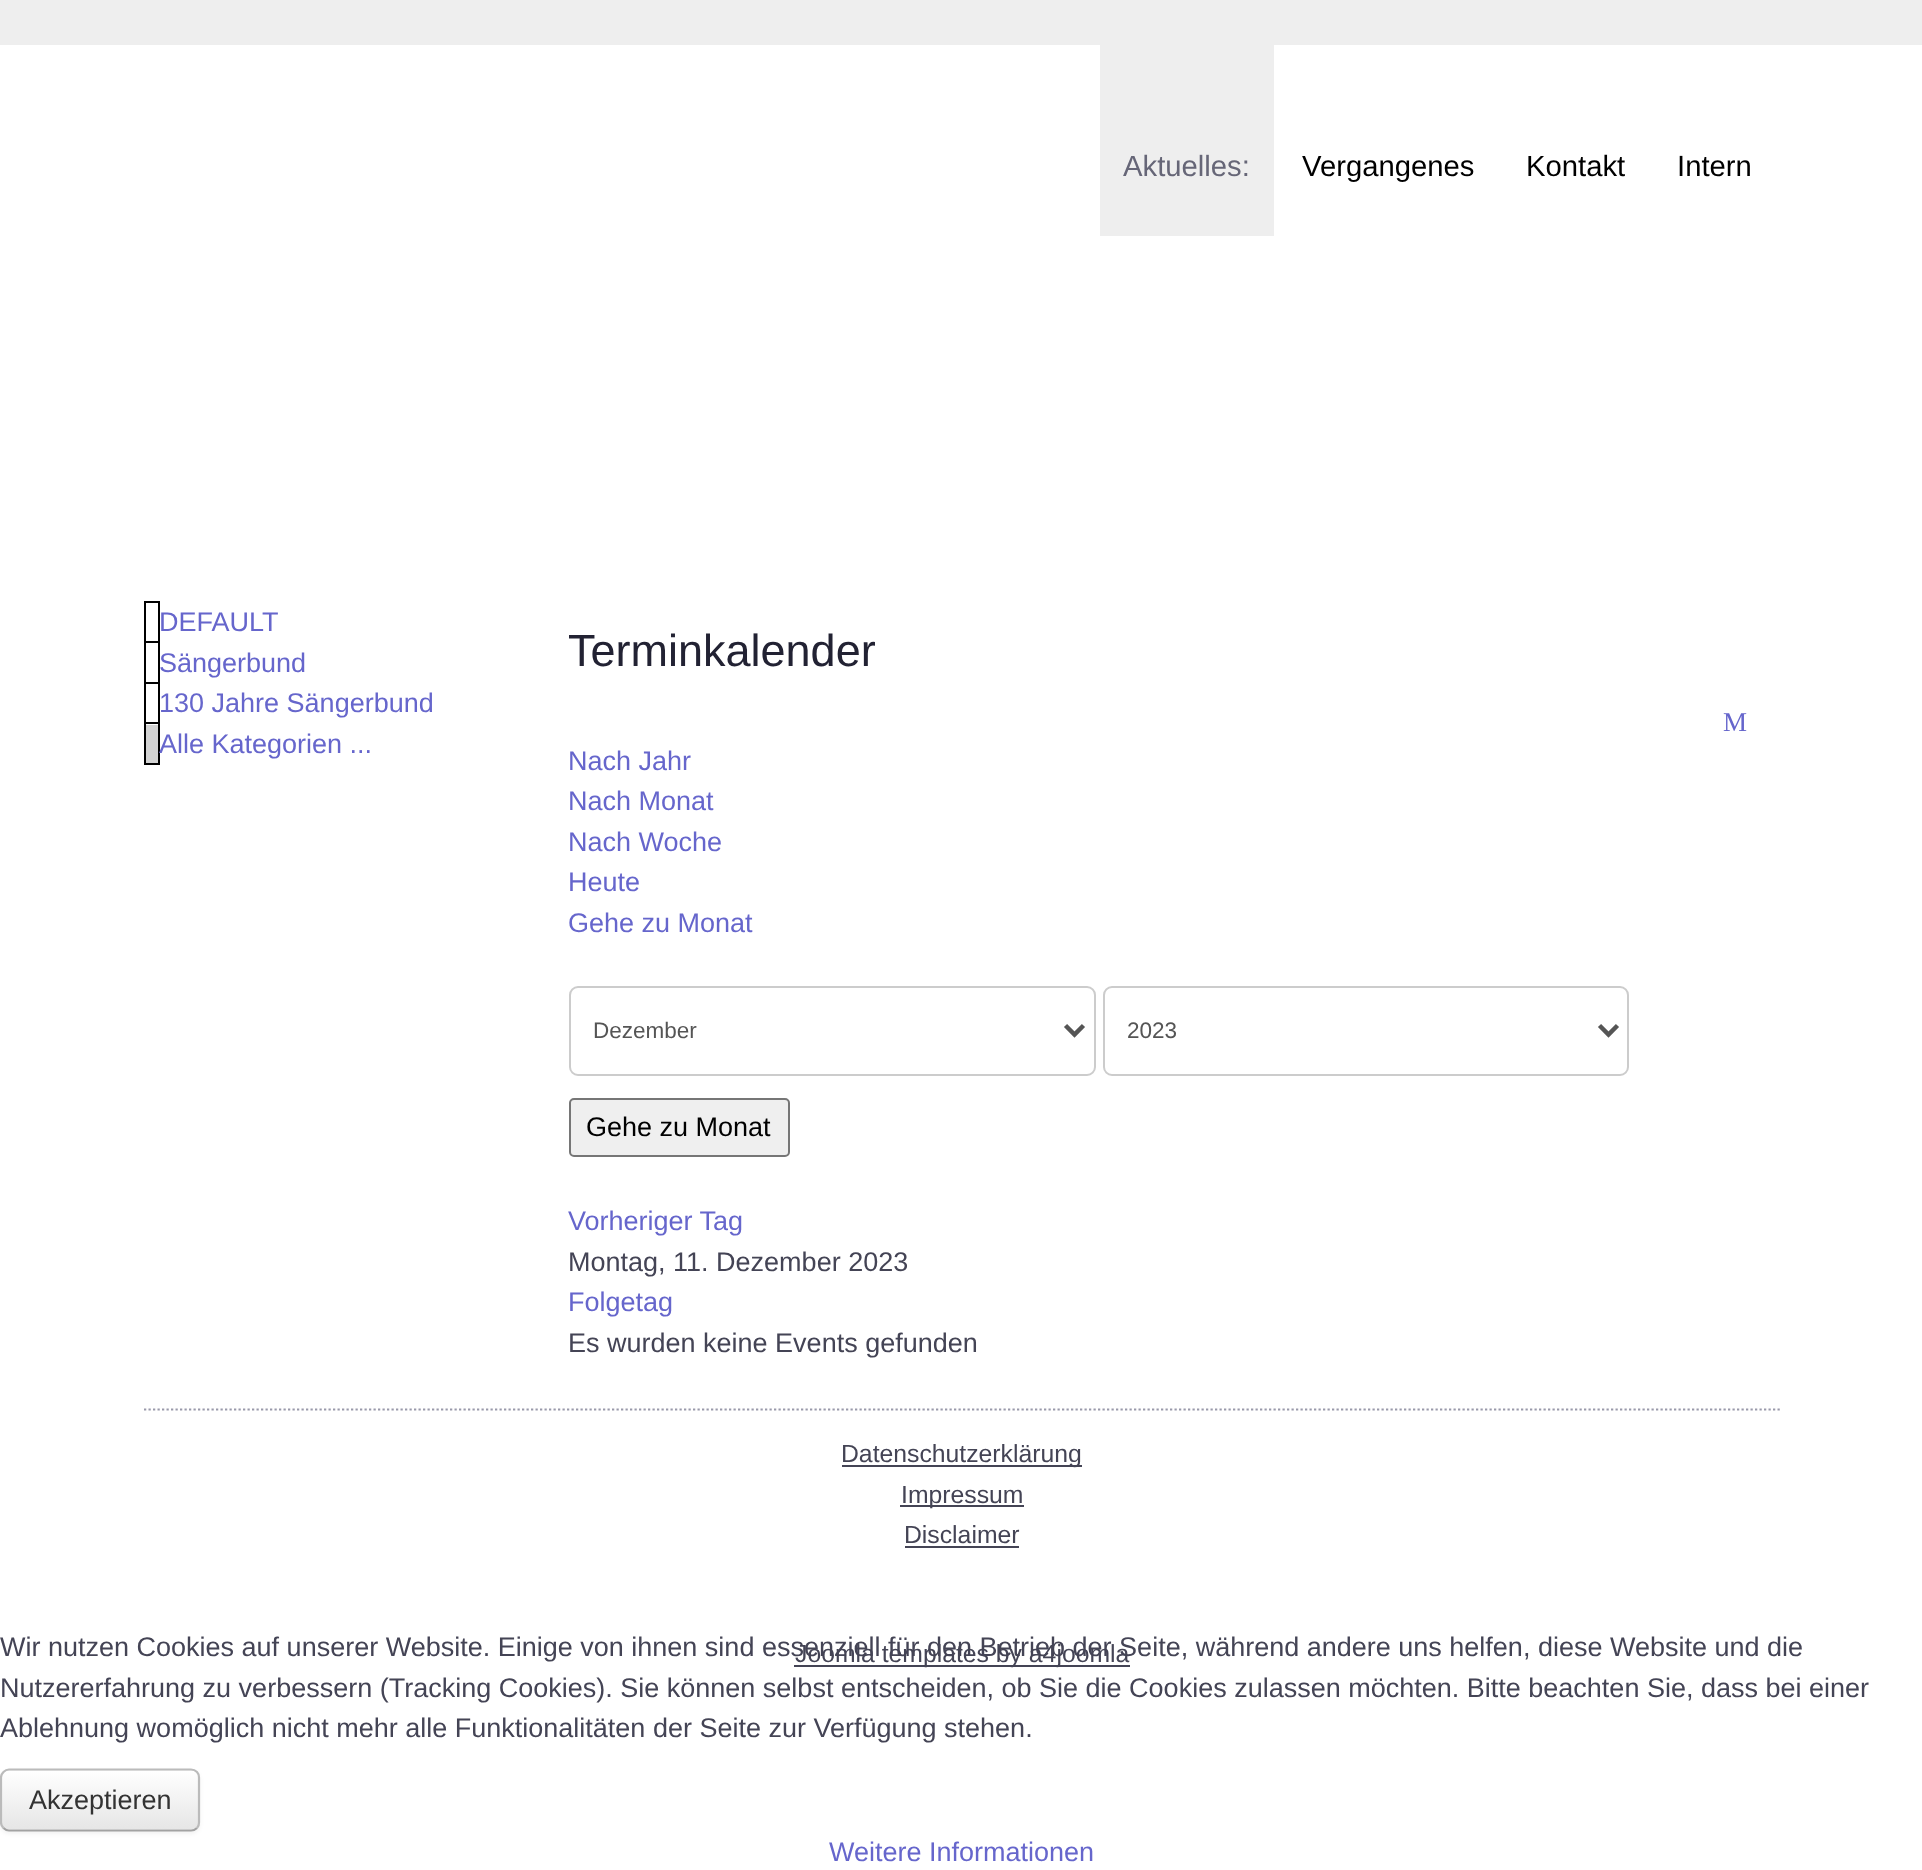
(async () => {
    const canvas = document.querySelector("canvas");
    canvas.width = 1922;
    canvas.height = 1870;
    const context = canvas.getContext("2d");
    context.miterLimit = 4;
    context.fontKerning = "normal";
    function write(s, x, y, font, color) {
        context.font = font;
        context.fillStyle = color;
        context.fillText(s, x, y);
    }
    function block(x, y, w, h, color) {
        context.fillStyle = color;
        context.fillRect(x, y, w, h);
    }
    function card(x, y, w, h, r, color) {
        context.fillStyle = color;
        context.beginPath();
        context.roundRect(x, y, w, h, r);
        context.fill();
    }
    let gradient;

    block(0, 0, 1922, 1870, "rgb(255, 255, 255)");
    block(0, 0, 1922, 45, "rgb(238, 238, 238)");
    context.beginPath();
    context.moveTo(144, 1409.5);
    context.lineTo(1782, 1409.5);
    context.strokeStyle = "rgb(153, 153, 170)";
    context.lineWidth = 2.2;
    context.setLineDash([2.25, 2.25]);
    context.stroke();
    block(1100, 45, 174, 191, "rgb(238, 238, 238)");
    write("Aktuelles:", 1123, 176, "29.25px Liberation Sans", "rgb(102, 102, 119)");
    write("Vergangenes", 1302, 176, "29.25px Liberation Sans", "rgb(0, 0, 0)");
    write("Kontakt", 1526, 176, "29.25px Liberation Sans", "rgb(0, 0, 0)");
    write("Intern", 1677, 176, "29.25px Liberation Sans", "rgb(0, 0, 0)");
    block(144, 601, 16, 2, "rgb(0, 0, 0)");
    block(144, 641, 16, 2, "rgb(0, 0, 0)");
    block(144, 682, 16, 2, "rgb(0, 0, 0)");
    block(144, 722, 16, 2, "rgb(0, 0, 0)");
    block(158, 722, 2, 43, "rgb(0, 0, 0)");
    block(158, 682, 2, 43, "rgb(0, 0, 0)");
    block(158, 641, 2, 43, "rgb(0, 0, 0)");
    block(158, 601, 2, 43, "rgb(0, 0, 0)");
    block(144, 763, 16, 2, "rgb(0, 0, 0)");
    block(144, 722, 2, 43, "rgb(0, 0, 0)");
    block(144, 682, 2, 43, "rgb(0, 0, 0)");
    block(144, 641, 2, 43, "rgb(0, 0, 0)");
    block(144, 601, 2, 43, "rgb(0, 0, 0)");
    write("DEFAULT", 159, 631, "27px Liberation Sans", "rgb(102, 102, 204)");
    write("Sängerbund", 159, 672, "27px Liberation Sans", "rgb(102, 102, 204)");
    write("130 Jahre Sängerbund", 159, 712, "27px Liberation Sans", "rgb(102, 102, 204)");
    block(146, 725, 12, 38, "rgb(211, 211, 211)");
    write("Alle Kategorien ...", 159, 753, "27px Liberation Sans", "rgb(102, 102, 204)");
    write("Terminkalender", 568, 666, "45px Liberation Sans", "rgb(34, 34, 51)");
    write("M", 1723, 731, "27px Liberation Serif", "rgb(102, 102, 204)");
    write("Nach Jahr", 568, 770, "27px Liberation Sans", "rgb(102, 102, 204)");
    write("Nach Monat", 568, 810, "27px Liberation Sans", "rgb(102, 102, 204)");
    write("Nach Woche", 568, 851, "27px Liberation Sans", "rgb(102, 102, 204)");
    write("Heute", 568, 891, "27px Liberation Sans", "rgb(102, 102, 204)");
    write("Gehe zu Monat", 568, 932, "27px Liberation Sans", "rgb(102, 102, 204)");
    context.beginPath();
    context.roundRect(570, 987, 525, 88, 8);
    context.strokeStyle = "rgb(204, 204, 204)";
    context.lineWidth = 2;
    context.setLineDash([]);
    context.stroke();
    context.beginPath();
    context.moveTo(1065.5, 1025.5);
    context.lineTo(1074.5, 1034.5);
    context.lineTo(1083.5, 1025.5);
    context.strokeStyle = "rgb(85, 85, 85)";
    context.lineWidth = 4.5;
    context.stroke();
    write("Dezember", 593, 1038, "22.5px Liberation Sans", "rgb(85, 85, 85)");
    context.beginPath();
    context.roundRect(1104, 987, 524, 88, 8);
    context.strokeStyle = "rgb(204, 204, 204)";
    context.lineWidth = 2;
    context.stroke();
    context.beginPath();
    context.moveTo(1599.5, 1025.5);
    context.lineTo(1608.5, 1034.5);
    context.lineTo(1617.5, 1025.5);
    context.strokeStyle = "rgb(85, 85, 85)";
    context.lineWidth = 4.5;
    context.stroke();
    write("2023", 1127, 1038, "22.5px Liberation Sans", "rgb(85, 85, 85)");
    context.fillStyle = "rgb(239, 239, 239)";
    context.beginPath();
    context.roundRect(570, 1099, 219, 57, 4);
    context.fill();
    context.strokeStyle = "rgb(118, 118, 118)";
    context.lineWidth = 2;
    context.stroke();
    write("Gehe zu Monat", 586, 1136, "27px Liberation Sans", "rgb(0, 0, 0)");
    write("Vorheriger Tag", 568, 1230, "27px Liberation Sans", "rgb(102, 102, 204)");
    write("Montag, 11. Dezember 2023", 568, 1271, "27px Liberation Sans", "rgb(68, 68, 85)");
    write("Folgetag", 568, 1311, "27px Liberation Sans", "rgb(102, 102, 204)");
    write("Es wurden keine Events gefunden", 568, 1352, "27px Liberation Sans", "rgb(68, 68, 85)");
    block(842, 1465, 240, 2, "rgb(68, 68, 85)");
    write("Datenschutzerklärung", 841, 1462, "24.75px Liberation Sans", "rgb(68, 68, 85)");
    block(900, 1505, 124, 2, "rgb(68, 68, 85)");
    write("Impressum", 901, 1503, "24.75px Liberation Sans", "rgb(68, 68, 85)");
    write("Disclaimer", 904, 1543, "24.75px Liberation Sans", "rgb(68, 68, 85)");
    block(905, 1546, 114, 2, "rgb(68, 68, 85)");
    block(794, 1665, 336, 2, "rgb(68, 68, 85)");
    write("Joomla templates by a4joomla", 795, 1662, "24.75px Liberation Sans", "rgb(68, 68, 85)");
    write("Wir nutzen Cookies auf unserer Website. Einige von ihnen sind essenziell für den Betrieb der Seite, während andere uns helfen, diese Website und die", 0, 1656, "27px Liberation Sans", "rgb(68, 68, 85)");
    write("Nutzererfahrung zu verbessern (Tracking Cookies). Sie können selbst entscheiden, ob Sie die Cookies zulassen möchten. Bitte beachten Sie, dass bei einer", 0, 1697, "27px Liberation Sans", "rgb(68, 68, 85)");
    write("Ablehnung womöglich nicht mehr alle Funktionalitäten der Seite zur Verfügung stehen.", 0, 1737, "27px Liberation Sans", "rgb(68, 68, 85)");
    context.fillStyle = "rgba(0, 0, 0, 0.05)";
    context.filter = "blur(2px)";
    context.beginPath();
    context.roundRect(0, 1771, 200, 63, 9);
    context.fill();
    context.filter = "none";
    card(0, 1769, 200, 63, 9, "rgb(245, 245, 245)");
    context.save();
    context.beginPath();
    context.roundRect(0, 1769, 200, 63, 9);
    context.clip();
    gradient = context.createLinearGradient(100, 1771, 100, 1829);
    gradient.addColorStop(0, "rgb(255, 255, 255)");
    gradient.addColorStop(1, "rgb(230, 230, 230)");
    context.fillStyle = gradient;
    context.fillRect(0, 1771, 200, 58);
    context.restore();
    context.beginPath();
    context.moveTo(197, 1828);
    context.bezierCurveTo(195.5, 1829.5, 193.5, 1830.5, 191, 1830.5);
    context.lineTo(9, 1830.5);
    context.bezierCurveTo(7, 1830.5, 5, 1829.5, 3.5, 1828);
    context.strokeStyle = "rgb(162, 162, 162)";
    context.lineWidth = 2.2;
    context.stroke();
    context.beginPath();
    context.moveTo(3.5, 1828);
    context.bezierCurveTo(2, 1826.5, 1, 1824.5, 1, 1822.5);
    context.lineTo(1, 1777.5);
    context.bezierCurveTo(1, 1775.5, 2, 1773.5, 3.5, 1772);
    context.bezierCurveTo(5, 1770.5, 7, 1769.5, 9, 1769.5);
    context.lineTo(191, 1769.5);
    context.bezierCurveTo(193.5, 1769.5, 195.5, 1770.5, 197, 1772);
    context.bezierCurveTo(198.5, 1773.5, 199, 1775.5, 199, 1777.5);
    context.lineTo(199, 1822.5);
    context.bezierCurveTo(199, 1824.5, 198.5, 1826.5, 197, 1828);
    context.strokeStyle = "rgb(187, 187, 187)";
    context.stroke();
    write("Akzeptieren", 29, 1809, "27px Liberation Sans", "rgb(51, 51, 51)");
    write("Weitere Informationen", 829, 1861, "27px Liberation Sans", "rgb(102, 102, 204)");
})();
